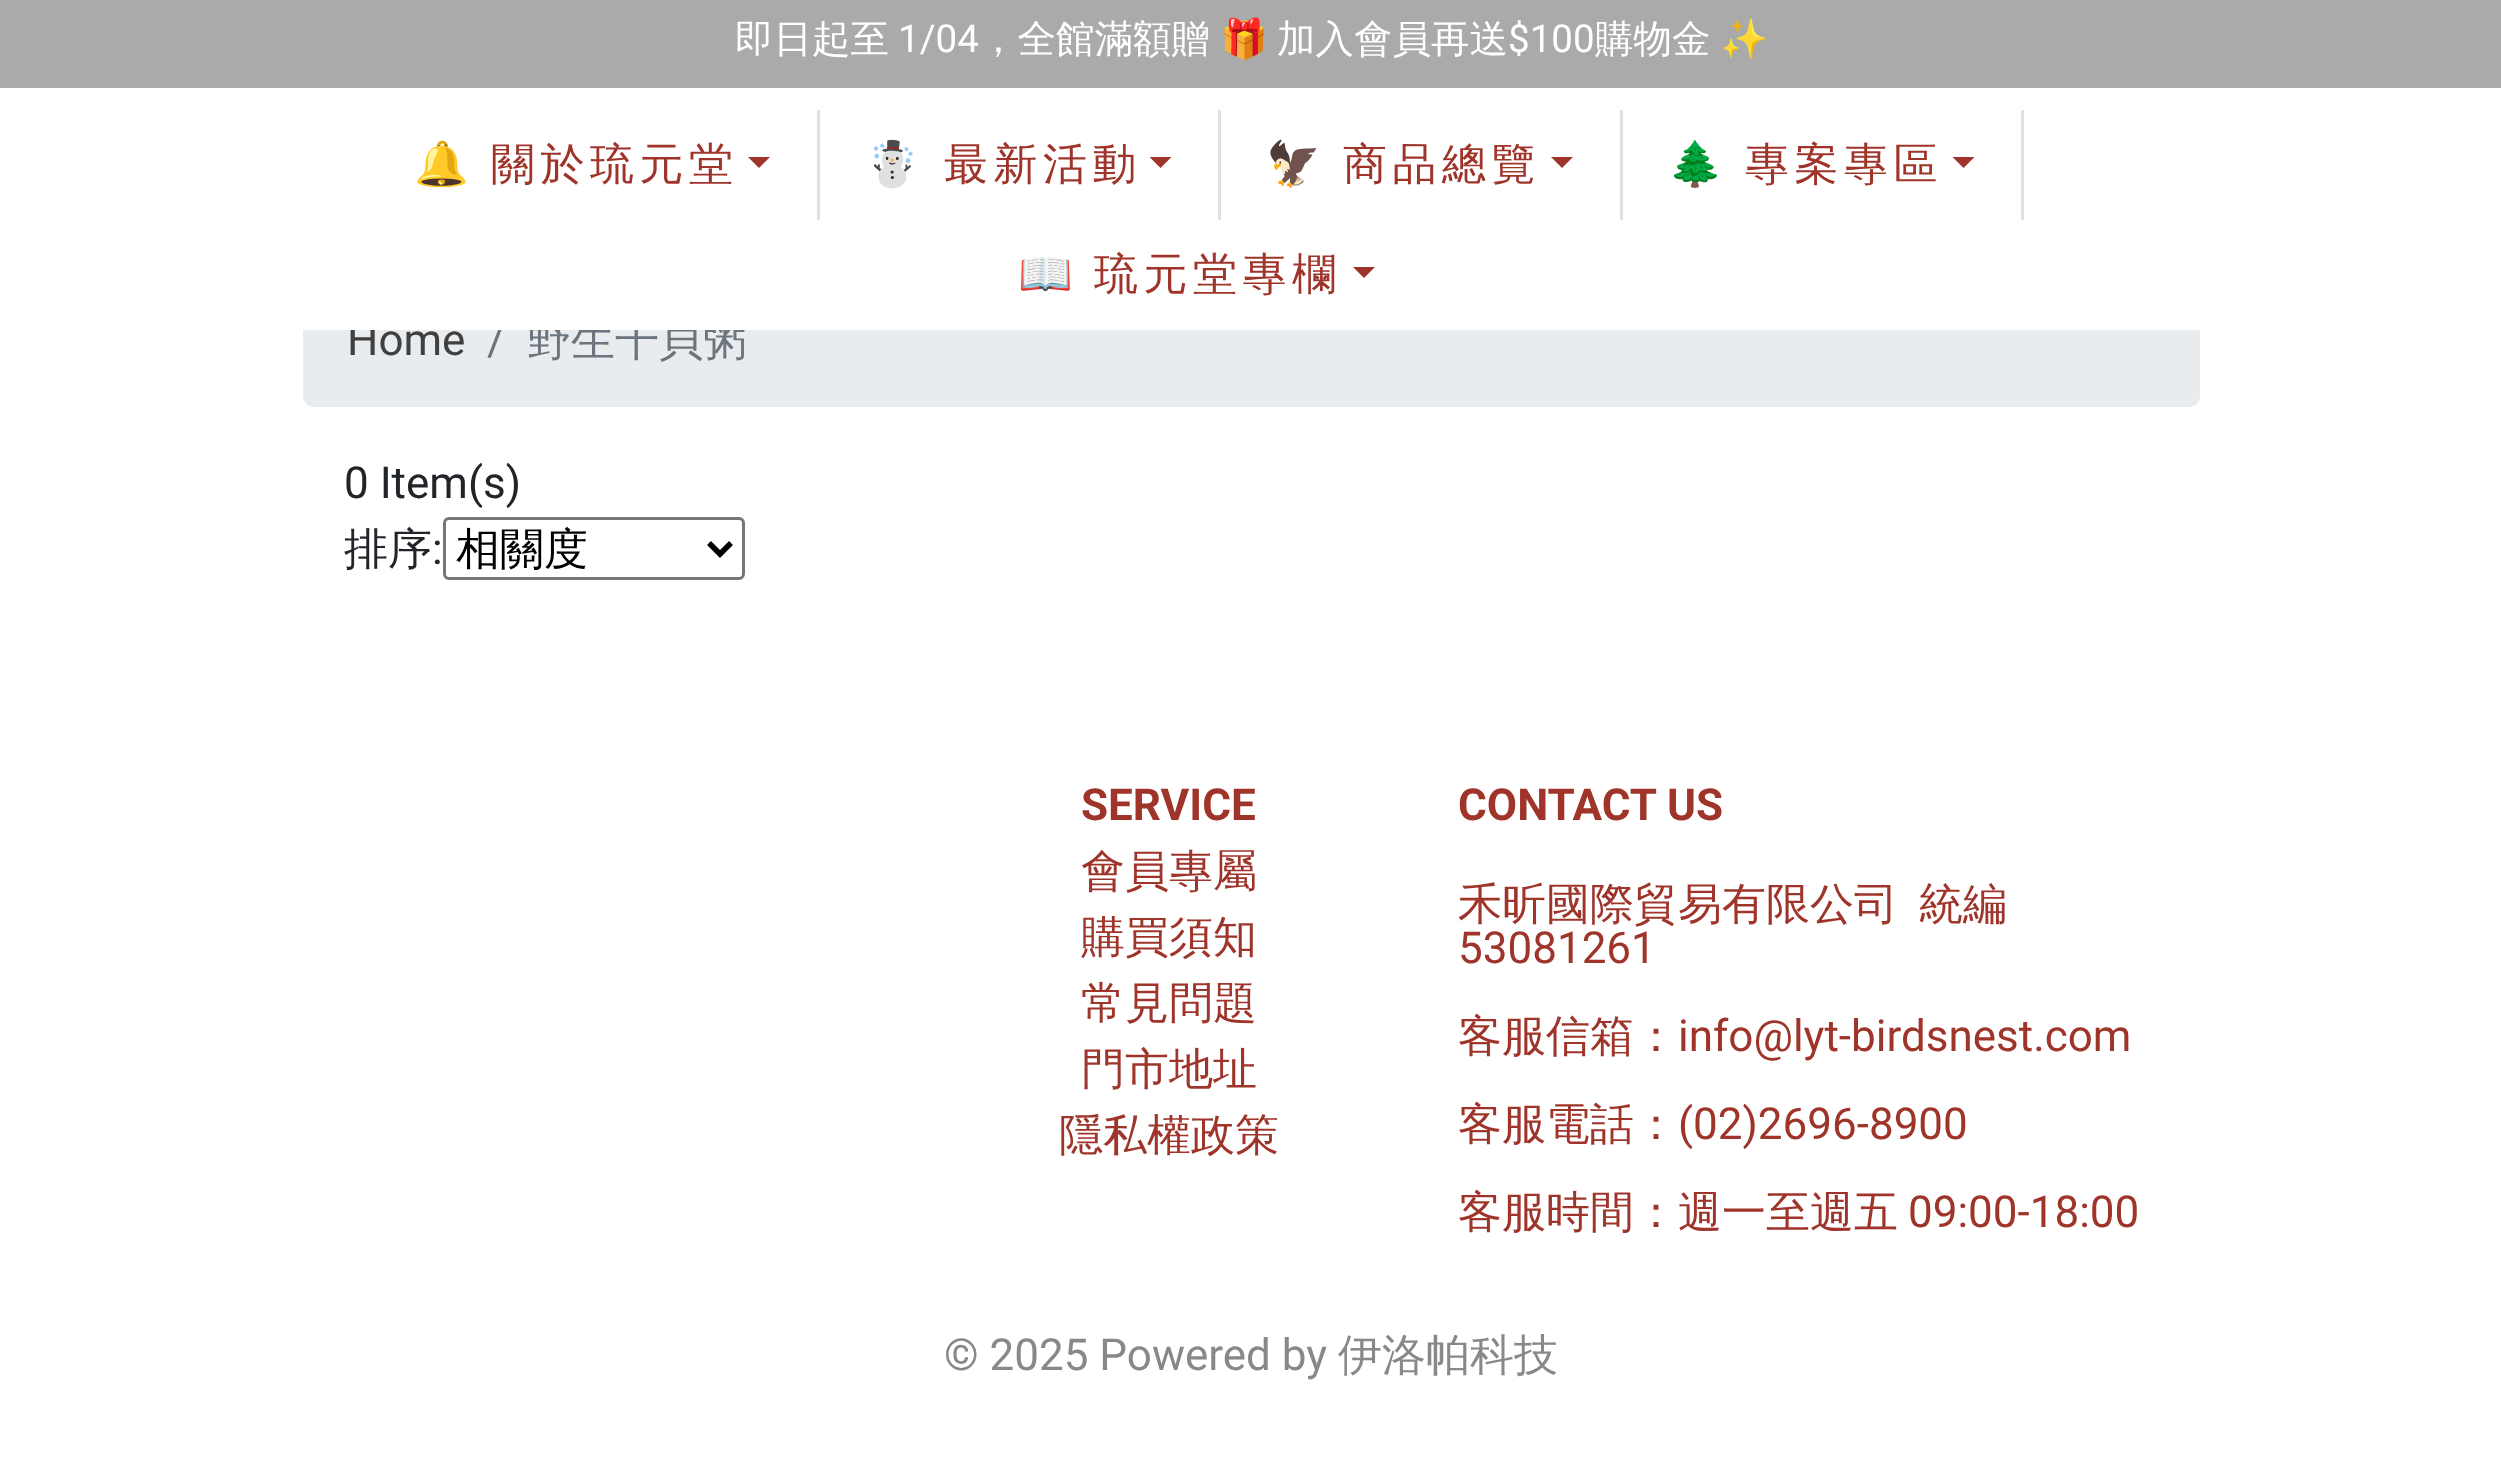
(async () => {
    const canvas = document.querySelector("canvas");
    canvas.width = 2501;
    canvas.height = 1475;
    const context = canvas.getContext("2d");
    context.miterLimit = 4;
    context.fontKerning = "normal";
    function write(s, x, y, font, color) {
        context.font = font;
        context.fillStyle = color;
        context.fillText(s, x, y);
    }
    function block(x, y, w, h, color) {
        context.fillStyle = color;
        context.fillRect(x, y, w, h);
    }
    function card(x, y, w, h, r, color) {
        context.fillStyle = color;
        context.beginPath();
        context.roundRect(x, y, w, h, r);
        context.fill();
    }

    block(0, 0, 2501, 1475, "rgb(255, 255, 255)");
    block(0, 0, 2501, 88, "rgb(170, 170, 170)");
    write("即日起至", 735, 52, "500 38.5px WenQuanYi Zen Hei", "rgb(255, 255, 255)");
    write("1/04", 898, 52, "38.5px Roboto", "rgb(255, 255, 255)");
    write("，全館滿額贈", 979, 52, "500 38.5px WenQuanYi Zen Hei", "rgb(255, 255, 255)");
    write("🎁", 1220, 52, "38.5px Noto Color Emoji", "rgb(255, 255, 255)");
    write("加入會員再送", 1277, 52, "500 38.5px WenQuanYi Zen Hei", "rgb(255, 255, 255)");
    write("$100", 1508, 52, "38.5px Roboto", "rgb(255, 255, 255)");
    write("購物金", 1595, 52, "500 38.5px WenQuanYi Zen Hei", "rgb(255, 255, 255)");
    write("✨", 1720, 52, "38.5px Noto Color Emoji", "rgb(255, 255, 255)");
    card(303, 275, 1897, 132, 11, "rgb(233, 236, 239)");
    write("Home", 347, 355, "44px Roboto", "rgb(64, 64, 64)");
    write("/", 487, 355, "44px Roboto", "rgb(108, 117, 125)");
    write("野生干貝粥", 527, 355, "500 44px WenQuanYi Zen Hei", "rgb(108, 117, 125)");
    block(303, 275, 1897, 55, "rgb(255, 255, 255)");
    block(817, 110, 3, 110, "rgb(222, 226, 230)");
    context.letterSpacing = "5.5px";
    write("🔔", 414, 179, "44px Noto Color Emoji", "rgb(159, 52, 42)");
    write("關於琉元堂", 491, 179, "500 44px WenQuanYi Zen Hei", "rgb(159, 52, 42)");
    context.beginPath();
    context.moveTo(748, 157);
    context.lineTo(770, 157);
    context.lineTo(759, 168);
    context.closePath();
    context.fill();
    block(1218, 110, 3, 110, "rgb(222, 226, 230)");
    write("☃️", 865, 179, "44px Noto Color Emoji", "rgb(159, 52, 42)");
    write("最新活動", 944, 179, "500 44px WenQuanYi Zen Hei", "rgb(159, 52, 42)");
    context.beginPath();
    context.moveTo(1149.5, 157);
    context.lineTo(1171.5, 157);
    context.lineTo(1160.5, 168);
    context.closePath();
    context.fill();
    block(1620, 110, 3, 110, "rgb(222, 226, 230)");
    write("🦅", 1266, 179, "44px Noto Color Emoji", "rgb(159, 52, 42)");
    write("商品總覽", 1343, 179, "500 44px WenQuanYi Zen Hei", "rgb(159, 52, 42)");
    context.beginPath();
    context.moveTo(1551, 157);
    context.lineTo(1573, 157);
    context.lineTo(1562, 168);
    context.closePath();
    context.fill();
    block(2021, 110, 3, 110, "rgb(222, 226, 230)");
    write("🌲", 1668, 179, "44px Noto Color Emoji", "rgb(159, 52, 42)");
    write("專案專區", 1745, 179, "500 44px WenQuanYi Zen Hei", "rgb(159, 52, 42)");
    context.beginPath();
    context.moveTo(1952.5, 157);
    context.lineTo(1974.5, 157);
    context.lineTo(1963.5, 168);
    context.closePath();
    context.fill();
    write("📖", 1018, 289, "44px Noto Color Emoji", "rgb(159, 52, 42)");
    write("琉元堂專欄", 1094, 289, "500 44px WenQuanYi Zen Hei", "rgb(159, 52, 42)");
    context.beginPath();
    context.moveTo(1353, 267);
    context.lineTo(1375, 267);
    context.lineTo(1364, 278);
    context.closePath();
    context.fill();
    context.letterSpacing = "0px";
    write("0 Item(s)", 344, 498, "44px Roboto", "rgb(33, 37, 41)");
    write("排序", 344, 564, "500 44px WenQuanYi Zen Hei", "rgb(33, 37, 41)");
    write(":", 432, 564, "44px Roboto", "rgb(33, 37, 41)");
    context.beginPath();
    context.roundRect(444.5, 518.5, 299, 60, 4.5);
    context.strokeStyle = "rgb(118, 118, 118)";
    context.lineWidth = 3;
    context.stroke();
    context.beginPath();
    context.moveTo(709, 543);
    context.lineTo(720, 554);
    context.lineTo(731, 543);
    context.strokeStyle = "rgb(0, 0, 0)";
    context.lineWidth = 5.5;
    context.stroke();
    write("相關度", 456, 564, "500 44px WenQuanYi Zen Hei", "rgb(0, 0, 0)");
    write("SERVICE", 1081, 820, "bold 44px Roboto", "rgb(159, 52, 42)");
    write("會員專屬", 1081, 886, "500 44px WenQuanYi Zen Hei", "rgb(159, 52, 42)");
    write("購買須知", 1081, 952, "500 44px WenQuanYi Zen Hei", "rgb(159, 52, 42)");
    write("常見問題", 1081, 1018, "500 44px WenQuanYi Zen Hei", "rgb(159, 52, 42)");
    write("門市地址", 1081, 1084, "500 44px WenQuanYi Zen Hei", "rgb(159, 52, 42)");
    write("隱私權政策", 1059, 1150, "500 44px WenQuanYi Zen Hei", "rgb(159, 52, 42)");
    write("CONTACT US", 1458, 820, "bold 44px Roboto", "rgb(159, 52, 42)");
    write("禾昕國際貿易有限公司", 1458, 919, "500 44px WenQuanYi Zen Hei", "rgb(159, 52, 42)");
    write("統編", 1919, 919, "500 44px WenQuanYi Zen Hei", "rgb(159, 52, 42)");
    write("53081261", 1458, 963, "44px Roboto", "rgb(159, 52, 42)");
    write("客服信箱：", 1458, 1051, "500 44px WenQuanYi Zen Hei", "rgb(159, 52, 42)");
    write("info@lyt-birdsnest.com", 1678, 1051, "44px Roboto", "rgb(159, 52, 42)");
    write("客服電話：", 1458, 1139, "500 44px WenQuanYi Zen Hei", "rgb(159, 52, 42)");
    write("(02)2696-8900", 1678, 1139, "44px Roboto", "rgb(159, 52, 42)");
    write("客服時間：週一至週五", 1458, 1227, "500 44px WenQuanYi Zen Hei", "rgb(159, 52, 42)");
    write("09:00-18:00", 1908, 1227, "44px Roboto", "rgb(159, 52, 42)");
    write("© 2025 Powered by", 944, 1370, "44px Roboto", "rgb(136, 136, 136)");
    write("伊洛帕科技", 1338, 1370, "500 44px WenQuanYi Zen Hei", "rgb(136, 136, 136)");
})();
